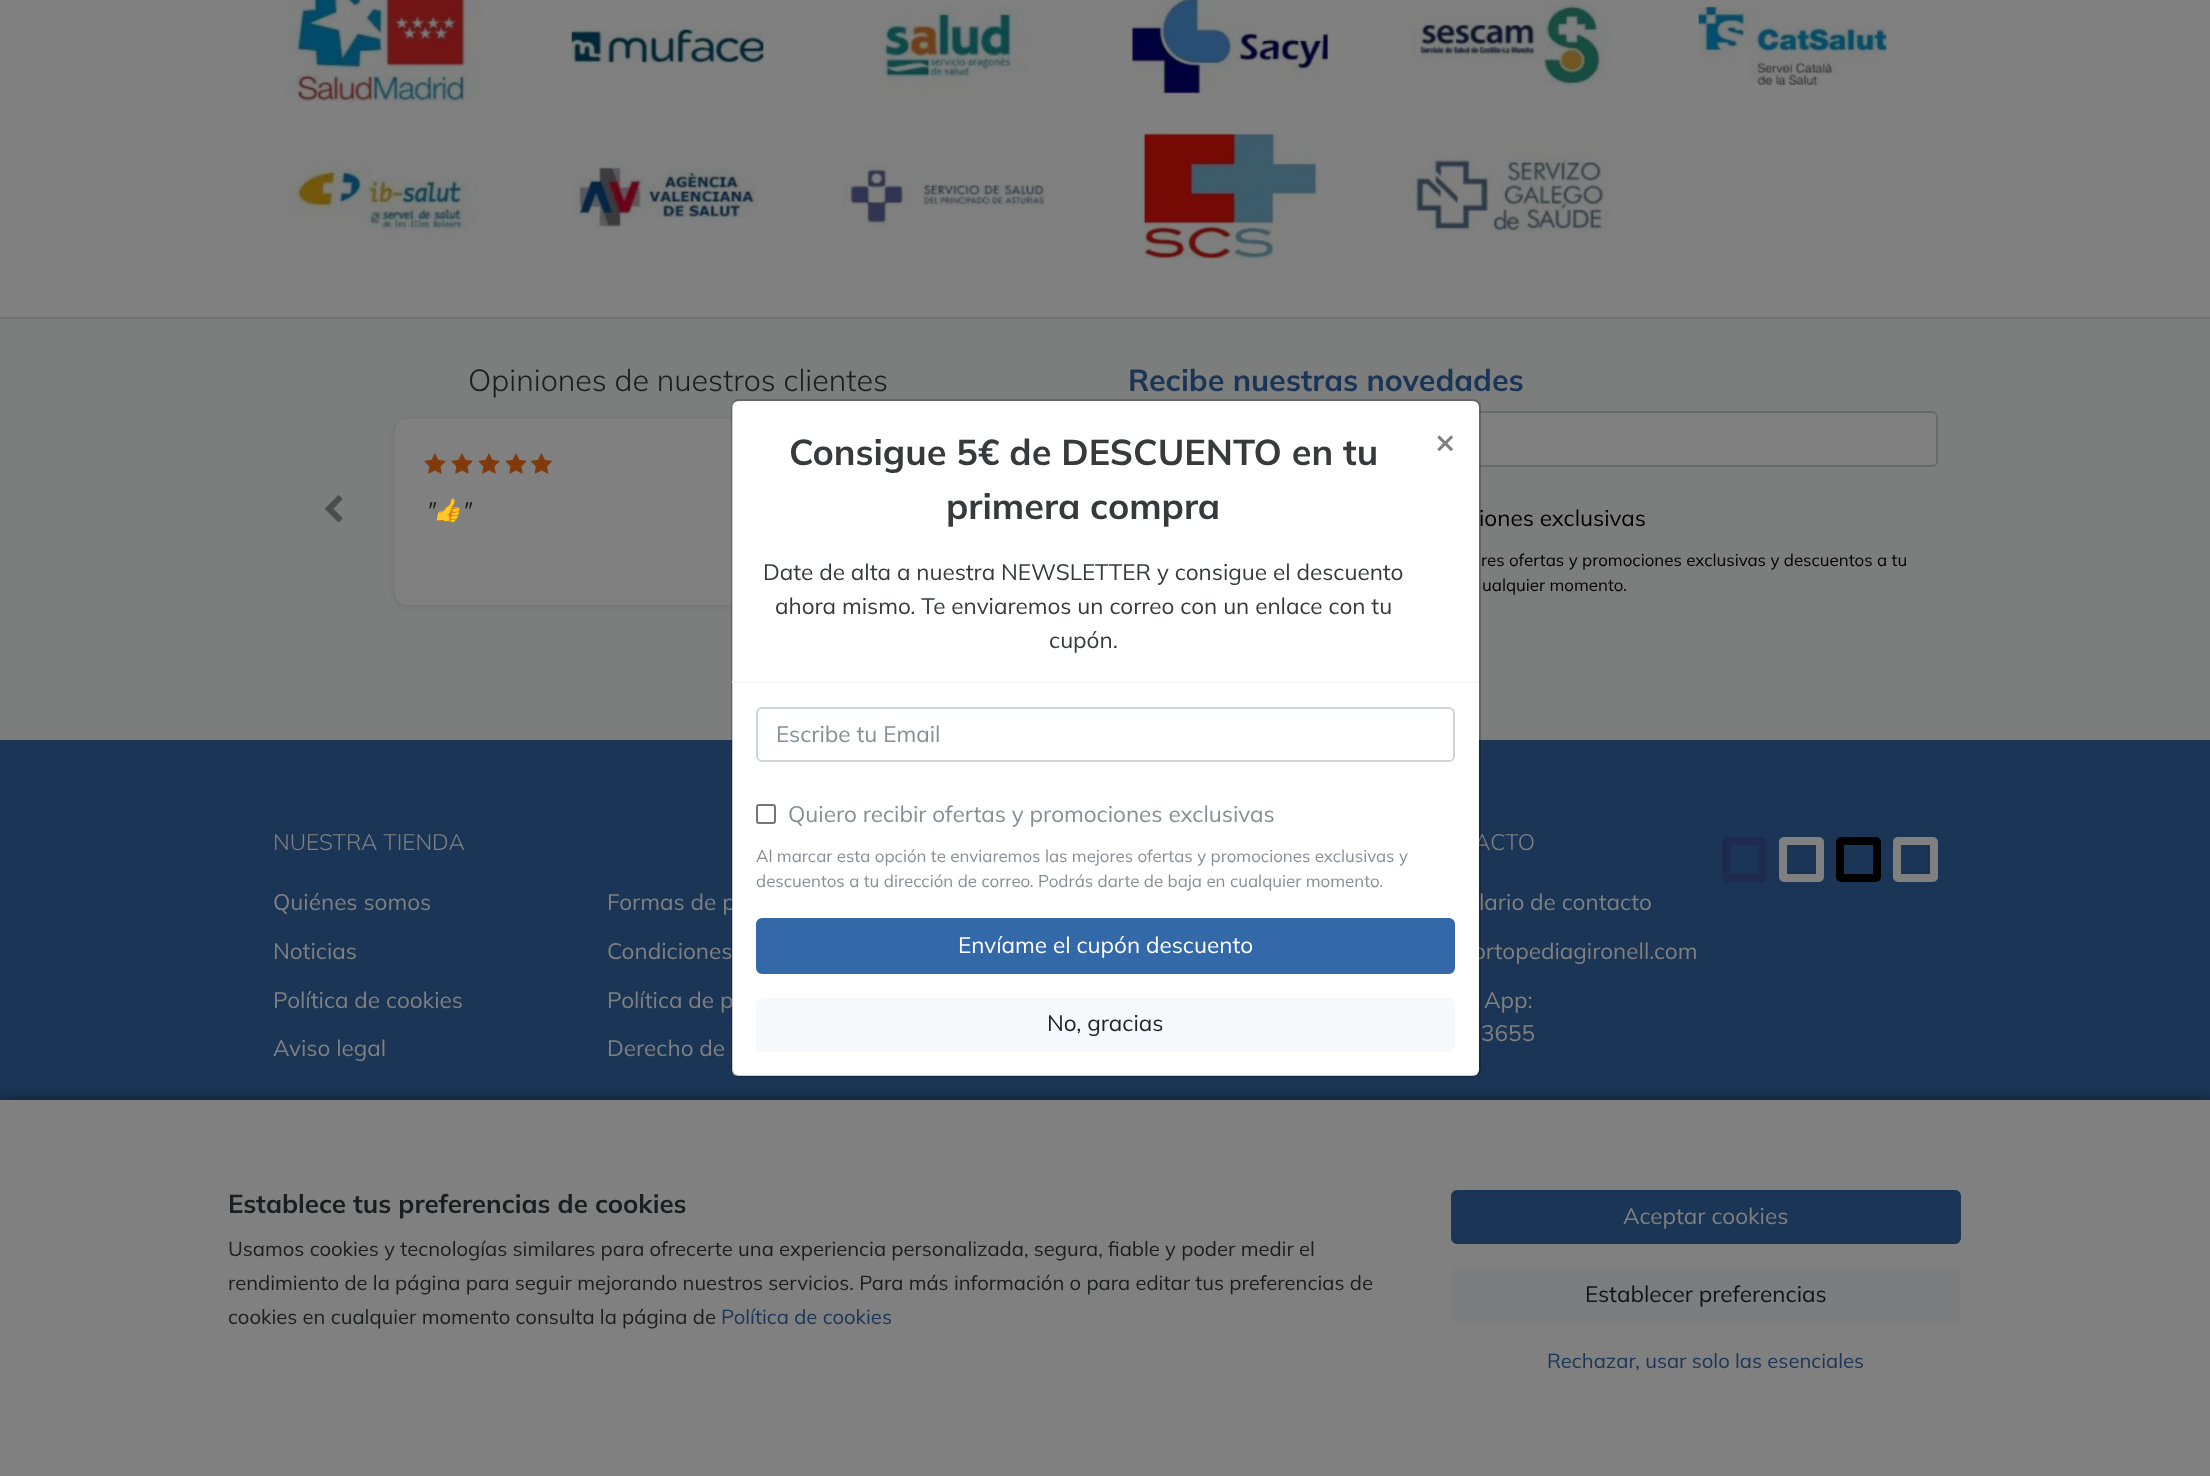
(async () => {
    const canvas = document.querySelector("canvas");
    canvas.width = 2210;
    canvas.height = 1476;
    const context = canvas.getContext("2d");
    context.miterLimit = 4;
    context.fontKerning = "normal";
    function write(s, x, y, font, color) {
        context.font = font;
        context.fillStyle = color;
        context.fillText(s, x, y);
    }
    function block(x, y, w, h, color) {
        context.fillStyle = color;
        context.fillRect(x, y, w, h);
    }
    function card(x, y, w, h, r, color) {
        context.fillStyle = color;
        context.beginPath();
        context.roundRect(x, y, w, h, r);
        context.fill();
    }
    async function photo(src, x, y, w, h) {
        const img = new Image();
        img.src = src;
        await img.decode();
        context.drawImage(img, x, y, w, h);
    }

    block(0, 0, 2210, 1476, "rgb(128, 128, 128)");
    await photo("media/1.png", 286, 0, 198, 102);
    await photo("media/2.png", 570, 25, 196, 40);
    await photo("media/3.png", 879, 3, 152, 94);
    await photo("media/4.png", 1130, 0, 200, 96);
    await photo("media/5.png", 1402, 1, 209, 86);
    await photo("media/6.png", 1698, 6, 189, 79);
    await photo("media/7.png", 287, 157, 192, 82);
    await photo("media/8.png", 572, 162, 188, 65);
    await photo("media/9.png", 842, 163, 205, 66);
    await photo("media/10.png", 1142, 133, 176, 126);
    await photo("media/11.png", 1408, 145, 202, 88);
    block(0, 319, 2210, 421, "rgb(124, 125, 125)");
    block(0, 317, 2210, 2, "rgb(111, 113, 115)");
    write("Opiniones de nuestros clientes", 468, 391, "300 30.4px Mulish", "rgb(28, 29, 30)");
    await photo("media/12.png", 325, 495, 18, 28);
    context.fillStyle = "rgba(0, 0, 0, 0.1)";
    context.filter = "blur(3px)";
    context.beginPath();
    context.roundRect(395, 420, 567, 186, 12);
    context.fill();
    context.filter = "none";
    card(395, 419, 567, 186, 12, "rgb(128, 128, 128)");
    await photo("media/13.png", 424, 453, 22, 21);
    await photo("media/13.png", 451, 453, 22, 21);
    await photo("media/13.png", 478, 453, 22, 21);
    await photo("media/13.png", 505, 453, 22, 21);
    await photo("media/14.png", 531, 453, 21, 21);
    write("\"", 425, 518, "italic 22.5px Mulish", "rgb(28, 29, 30)");
    write("👍", 433, 518, "italic 22.5px Noto Color Emoji", "rgb(28, 29, 30)");
    write("\"", 461, 518, "italic 22.5px Mulish", "rgb(28, 29, 30)");
    write("Recibe nuestras novedades", 1128, 391, "bold 30.4px Mulish", "rgb(26, 53, 85)");
    context.fillStyle = "rgb(128, 128, 128)";
    context.beginPath();
    context.roundRect(1129, 412, 808, 54, 5);
    context.fill();
    context.strokeStyle = "rgb(103, 106, 109)";
    context.lineWidth = 2;
    context.stroke();
    write("iones exclusivas", 1479, 526, "22.5px Mulish", "rgb(0, 0, 0)");
    write("res ofertas y promociones exclusivas y descuentos a tu", 1481, 566, "16.9px Mulish", "rgb(0, 0, 0)");
    write("ualquier momento.", 1482, 591, "16.9px Mulish", "rgb(0, 0, 0)");
    block(0, 740, 2210, 360, "rgb(26, 53, 85)");
    write("Formas de p", 607, 910, "22.5px Mulish", "rgb(128, 128, 128)");
    write("Política de p", 607, 1008, "22.5px Mulish", "rgb(128, 128, 128)");
    write("ACTO", 1474, 850, "300 22.5px Mulish", "rgb(128, 128, 128)");
    write("ortopediagironell.com", 1473, 959, "22.5px Mulish", "rgb(128, 128, 128)");
    card(732, 401, 747, 675, 6, "rgb(255, 255, 255)");
    write("Condiciones", 607, 959, "22.5px Mulish", "rgb(128, 128, 128)");
    write("lario de contacto", 1479, 910, "22.5px Mulish", "rgb(128, 128, 128)");
    context.beginPath();
    context.roundRect(732, 400, 748, 676, 7);
    context.strokeStyle = "rgba(0, 0, 0, 0.2)";
    context.stroke();
    block(732, 681, 747, 2, "rgb(248, 248, 248)");
    write("Consigue 5€ de DESCUENTO en tu", 789, 465, "bold 36px Mulish", "rgb(55, 58, 60)");
    write("primera compra", 946, 519, "bold 36px Mulish", "rgb(55, 58, 60)");
    write("Date de alta a nuestra NEWSLETTER y consigue el descuento", 763, 580, "22.5px Mulish", "rgb(55, 58, 60)");
    write("ahora mismo. Te enviaremos un correo con un enlace con tu", 775, 614, "22.5px Mulish", "rgb(55, 58, 60)");
    write("cupón.", 1049, 648, "22.5px Mulish", "rgb(55, 58, 60)");
    write("×", 1435, 453, "bold 34px Mulish", "rgb(128, 128, 128)");
    context.beginPath();
    context.roundRect(757, 708, 697, 53, 5);
    context.strokeStyle = "rgb(206, 212, 218)";
    context.stroke();
    write("Escribe tu Email", 776, 742, "22.5px Mulish", "rgb(134, 142, 150)");
    context.beginPath();
    context.roundRect(757, 805, 18, 18, 2);
    context.strokeStyle = "rgb(118, 118, 118)";
    context.stroke();
    write("Quiero recibir ofertas y promociones exclusivas", 788, 822, "22.5px Mulish", "rgb(134, 142, 150)");
    write("Al marcar esta opción te enviaremos las mejores ofertas y promociones exclusivas y", 756, 862, "16.9px Mulish", "rgb(134, 142, 150)");
    write("descuentos a tu dirección de correo. Podrás darte de baja en cualquier momento.", 756, 887, "16.9px Mulish", "rgb(134, 142, 150)");
    context.fillStyle = "rgb(51, 105, 169)";
    context.beginPath();
    context.roundRect(757, 919, 697, 54, 5);
    context.fill();
    context.strokeStyle = "rgb(51, 105, 169)";
    context.stroke();
    write("Envíame el cupón descuento", 958, 953, "22.5px Mulish", "rgb(255, 255, 255)");
    card(756, 998, 699, 54, 6, "rgb(246, 249, 252)");
    write("No, gracias", 1047, 1031, "22.5px Mulish", "rgb(33, 37, 41)");
    write("NUESTRA TIENDA", 273, 850, "300 22.5px Mulish", "rgb(128, 128, 128)");
    write("Quiénes somos", 273, 910, "22.5px Mulish", "rgb(128, 128, 128)");
    write("Noticias", 273, 959, "22.5px Mulish", "rgb(128, 128, 128)");
    write("Política de cookies", 273, 1008, "22.5px Mulish", "rgb(128, 128, 128)");
    write("Aviso legal", 273, 1056, "22.5px Mulish", "rgb(128, 128, 128)");
    write("Derecho de", 607, 1056, "22.5px Mulish", "rgb(128, 128, 128)");
    write("App:", 1484, 1008, "22.5px Mulish", "rgb(128, 128, 128)");
    write("3655", 1481, 1041, "22.5px Mulish", "rgb(128, 128, 128)");
    context.beginPath();
    context.roundRect(1726, 841, 37, 37, 1);
    context.strokeStyle = "rgb(30, 43, 78)";
    context.lineWidth = 8;
    context.stroke();
    context.beginPath();
    context.roundRect(1783, 841, 37, 37, 1);
    context.strokeStyle = "rgb(128, 128, 128)";
    context.stroke();
    context.beginPath();
    context.roundRect(1840, 841, 37, 37, 1);
    context.strokeStyle = "rgb(0, 0, 0)";
    context.stroke();
    context.beginPath();
    context.roundRect(1897, 841, 37, 37, 1);
    context.strokeStyle = "rgb(128, 128, 128)";
    context.stroke();
    context.fillStyle = "rgba(0, 0, 0, 0.5)";
    context.filter = "blur(7.5px)";
    context.beginPath();
    context.rect(0, 1101, 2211, 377);
    context.fill();
    context.filter = "none";
    block(0, 1100, 2210, 376, "rgb(128, 128, 128)");
    write("Establece tus preferencias de cookies", 228, 1213, "bold 25.9px Mulish", "rgb(28, 29, 30)");
    write("Usamos cookies y tecnologías similares para ofrecerte una experiencia personalizada, segura, fiable y poder medir el", 228, 1256, "20.25px Mulish", "rgb(28, 29, 30)");
    write("rendimiento de la página para seguir mejorando nuestros servicios. Para más información o para editar tus preferencias de", 228, 1290, "20.25px Mulish", "rgb(28, 29, 30)");
    write("cookies en cualquier momento consulta la página de", 228, 1324, "20.25px Mulish", "rgb(28, 29, 30)");
    write("Política de cookies", 721, 1324, "20.25px Mulish", "rgb(26, 53, 85)");
    context.beginPath();
    context.roundRect(1452, 1191, 508, 52, 5);
    context.fill();
    context.strokeStyle = "rgb(26, 53, 85)";
    context.lineWidth = 2;
    context.stroke();
    write("Aceptar cookies", 1623, 1224, "22.5px Mulish", "rgb(128, 128, 128)");
    card(1451, 1268, 510, 55, 6, "rgb(123, 125, 126)");
    write("Establecer preferencias", 1585, 1302, "22.5px Mulish", "rgb(17, 19, 21)");
    write("Rechazar, usar solo las esenciales", 1547, 1368, "20.25px Mulish", "rgb(26, 53, 85)");
})();
